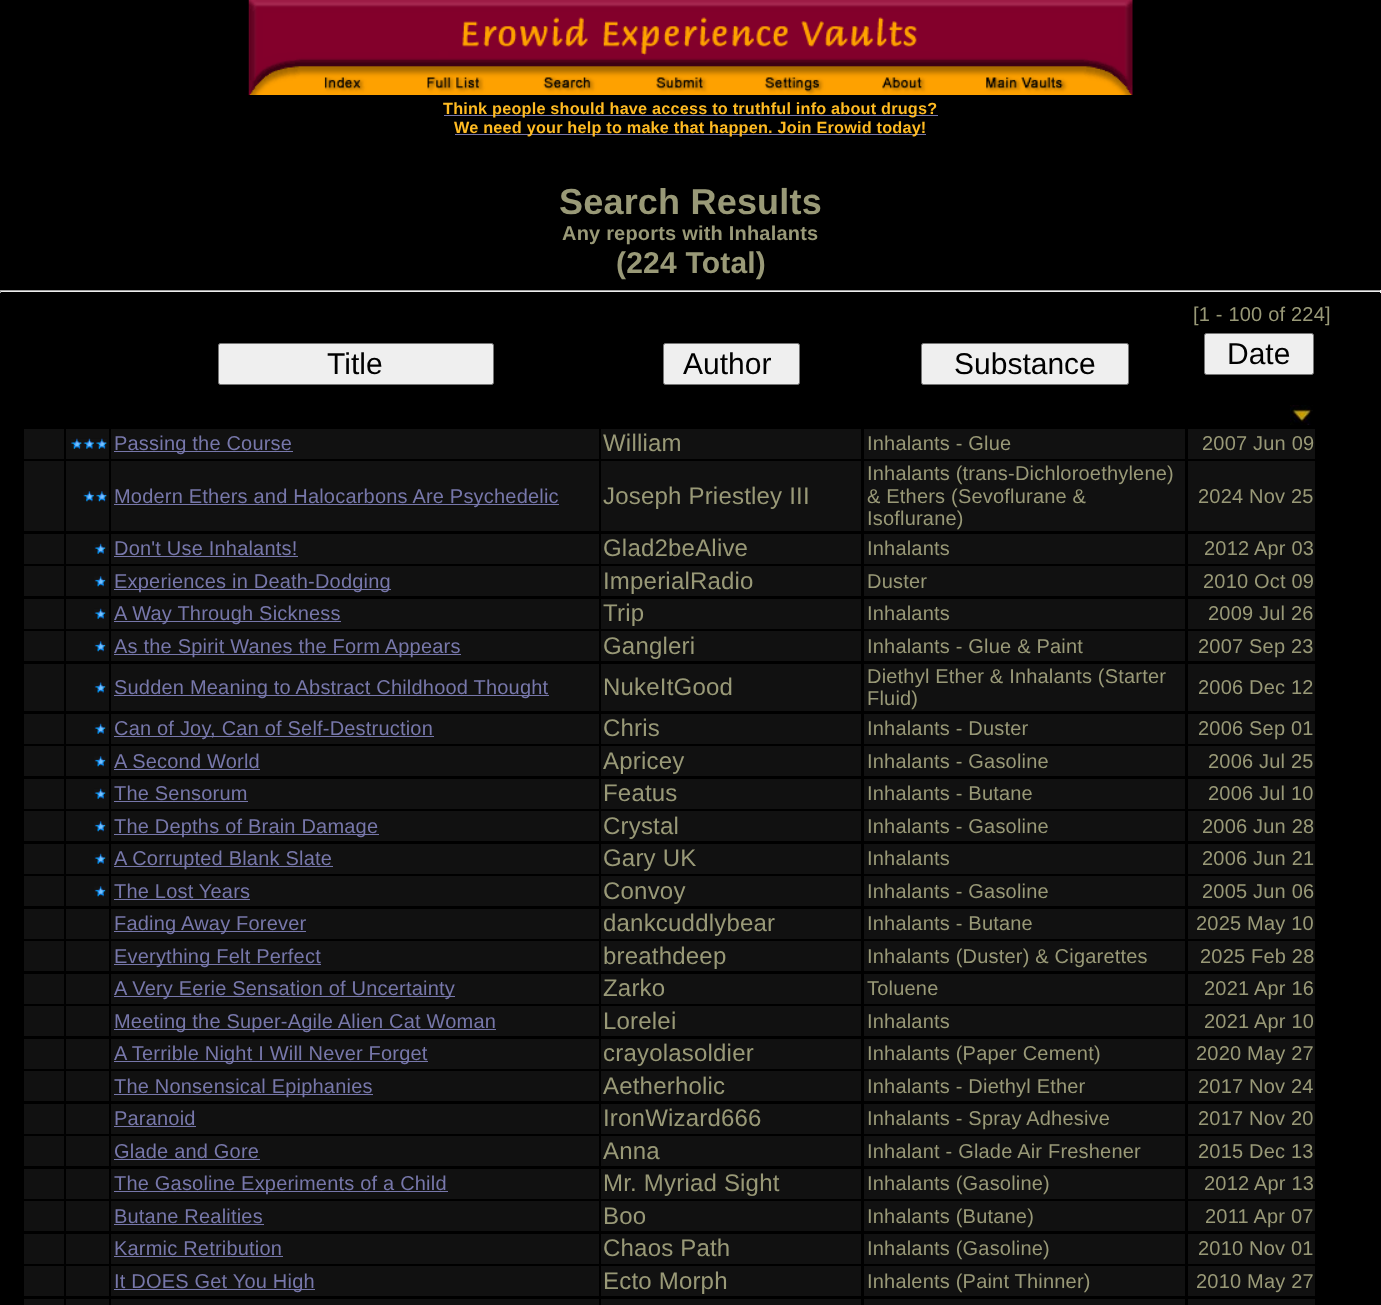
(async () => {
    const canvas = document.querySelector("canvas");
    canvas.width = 1381;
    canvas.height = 1305;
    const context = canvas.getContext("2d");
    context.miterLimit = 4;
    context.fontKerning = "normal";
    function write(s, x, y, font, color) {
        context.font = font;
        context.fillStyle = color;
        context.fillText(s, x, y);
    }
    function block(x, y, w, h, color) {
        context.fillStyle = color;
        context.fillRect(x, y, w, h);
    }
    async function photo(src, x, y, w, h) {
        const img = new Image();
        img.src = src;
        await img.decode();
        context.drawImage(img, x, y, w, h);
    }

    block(0, 0, 1381, 1305, "rgb(0, 0, 0)");
    await photo("media/1.png", 248, 0, 885, 95);
    block(444, 115, 494, 1, "rgb(119, 119, 170)");
    context.letterSpacing = "0.2px";
    write("Think people should have access to truthful info about drugs?", 443, 114, "bold 16.25px Liberation Sans", "rgb(255, 187, 34)");
    block(455, 134, 471, 1, "rgb(119, 119, 170)");
    write("We need your help to make that happen. Join Erowid today!", 454, 133, "bold 16.25px Liberation Sans", "rgb(255, 187, 34)");
    write("Search Results", 559, 214, "bold 36px Liberation Sans", "rgb(153, 153, 119)");
    write("Any reports with Inhalants", 562, 240, "bold 20px Liberation Sans", "rgb(153, 153, 119)");
    write("(224 Total)", 616, 273, "bold 30px Liberation Sans", "rgb(153, 153, 119)");
    block(0, 290, 1381, 1, "rgb(159, 159, 159)");
    block(1380, 290, 1, 3, "rgb(238, 238, 238)");
    block(0, 291, 1381, 1, "rgb(238, 238, 238)");
    block(0, 290, 1, 3, "rgb(159, 159, 159)");
    write("[1 - 100 of 224]", 1193, 321, "20px Liberation Sans", "rgb(153, 153, 119)");
    context.fillStyle = "rgb(239, 239, 239)";
    context.beginPath();
    context.roundRect(218.5, 343.5, 275, 41, 2);
    context.fill();
    context.strokeStyle = "rgb(118, 118, 118)";
    context.stroke();
    context.letterSpacing = "0px";
    write("Title", 327, 374, "30px Liberation Sans", "rgb(0, 0, 0)");
    context.fillStyle = "rgb(239, 239, 239)";
    context.beginPath();
    context.roundRect(663.5, 343.5, 136, 41, 2);
    context.fill();
    context.stroke();
    write("Author", 683, 374, "30px Liberation Sans", "rgb(0, 0, 0)");
    context.fillStyle = "rgb(239, 239, 239)";
    context.beginPath();
    context.roundRect(921.5, 343.5, 207, 41, 2);
    context.fill();
    context.stroke();
    write("Substance", 954, 374, "30px Liberation Sans", "rgb(0, 0, 0)");
    context.fillStyle = "rgb(239, 239, 239)";
    context.beginPath();
    context.roundRect(1204.5, 333.5, 109, 41, 2);
    context.fill();
    context.stroke();
    write("Date", 1227, 364, "30px Liberation Sans", "rgb(0, 0, 0)");
    await photo("media/2.png", 1290, 405, 23, 20);
    block(24, 429, 40, 30, "rgb(17, 17, 17)");
    block(66, 429, 43, 30, "rgb(17, 17, 17)");
    await photo("media/3.png", 71, 438, 36, 11);
    block(111, 429, 488, 30, "rgb(17, 17, 17)");
    block(114, 451, 179, 1, "rgb(119, 119, 170)");
    context.letterSpacing = "0.2px";
    write("Passing the Course", 114, 450, "20px Liberation Sans", "rgb(119, 119, 170)");
    block(601, 429, 260, 30, "rgb(17, 17, 17)");
    write("William", 603, 451, "24px Liberation Sans", "rgb(153, 153, 119)");
    block(864, 429, 321, 30, "rgb(17, 17, 17)");
    write("Inhalants - Glue", 867, 450, "20px Liberation Sans", "rgb(153, 153, 119)");
    block(1188, 429, 127, 30, "rgb(17, 17, 17)");
    write("2007 Jun 09", 1202, 450, "20px Liberation Sans", "rgb(153, 153, 119)");
    block(24, 461, 40, 70, "rgb(17, 17, 17)");
    block(66, 461, 43, 70, "rgb(17, 17, 17)");
    await photo("media/4.png", 83, 491, 24, 11);
    block(111, 461, 488, 70, "rgb(17, 17, 17)");
    block(114, 504, 445, 1, "rgb(119, 119, 170)");
    write("Modern Ethers and Halocarbons Are Psychedelic", 114, 503, "20px Liberation Sans", "rgb(119, 119, 170)");
    block(601, 461, 260, 70, "rgb(17, 17, 17)");
    write("Joseph Priestley III", 603, 504, "24px Liberation Sans", "rgb(153, 153, 119)");
    block(864, 461, 321, 70, "rgb(17, 17, 17)");
    write("Inhalants (trans-Dichloroethylene)", 867, 480, "20px Liberation Sans", "rgb(153, 153, 119)");
    write("& Ethers (Sevoflurane &", 867, 503, "20px Liberation Sans", "rgb(153, 153, 119)");
    write("Isoflurane)", 867, 525, "20px Liberation Sans", "rgb(153, 153, 119)");
    block(1188, 461, 127, 70, "rgb(17, 17, 17)");
    write("2024 Nov 25", 1198, 503, "20px Liberation Sans", "rgb(153, 153, 119)");
    block(24, 534, 40, 30, "rgb(17, 17, 17)");
    block(66, 534, 43, 30, "rgb(17, 17, 17)");
    await photo("media/5.png", 94, 543, 12, 11);
    block(111, 534, 488, 30, "rgb(17, 17, 17)");
    write("Don't Use Inhalants!", 114, 555, "20px Liberation Sans", "rgb(119, 119, 170)");
    block(114, 556, 184, 1, "rgb(119, 119, 170)");
    block(601, 534, 260, 30, "rgb(17, 17, 17)");
    write("Glad2beAlive", 603, 556, "24px Liberation Sans", "rgb(153, 153, 119)");
    block(864, 534, 321, 30, "rgb(17, 17, 17)");
    write("Inhalants", 867, 555, "20px Liberation Sans", "rgb(153, 153, 119)");
    block(1188, 534, 127, 30, "rgb(17, 17, 17)");
    write("2012 Apr 03", 1204, 555, "20px Liberation Sans", "rgb(153, 153, 119)");
    block(24, 566, 40, 30, "rgb(17, 17, 17)");
    block(66, 566, 43, 30, "rgb(17, 17, 17)");
    await photo("media/6.png", 94, 576, 12, 11);
    block(111, 566, 488, 30, "rgb(17, 17, 17)");
    block(114, 589, 277, 1, "rgb(119, 119, 170)");
    write("Experiences in Death-Dodging", 114, 588, "20px Liberation Sans", "rgb(119, 119, 170)");
    block(601, 566, 260, 30, "rgb(17, 17, 17)");
    write("ImperialRadio", 603, 589, "24px Liberation Sans", "rgb(153, 153, 119)");
    block(864, 566, 321, 30, "rgb(17, 17, 17)");
    write("Duster", 867, 588, "20px Liberation Sans", "rgb(153, 153, 119)");
    block(1188, 566, 127, 30, "rgb(17, 17, 17)");
    write("2010 Oct 09", 1203, 588, "20px Liberation Sans", "rgb(153, 153, 119)");
    block(24, 599, 40, 30, "rgb(17, 17, 17)");
    block(66, 599, 43, 30, "rgb(17, 17, 17)");
    await photo("media/5.png", 94, 608, 12, 11);
    block(111, 599, 488, 30, "rgb(17, 17, 17)");
    block(114, 621, 227, 1, "rgb(119, 119, 170)");
    write("A Way Through Sickness", 114, 620, "20px Liberation Sans", "rgb(119, 119, 170)");
    block(601, 599, 260, 30, "rgb(17, 17, 17)");
    write("Trip", 603, 621, "24px Liberation Sans", "rgb(153, 153, 119)");
    block(864, 599, 321, 30, "rgb(17, 17, 17)");
    write("Inhalants", 867, 620, "20px Liberation Sans", "rgb(153, 153, 119)");
    block(1188, 599, 127, 30, "rgb(17, 17, 17)");
    write("2009 Jul 26", 1208, 620, "20px Liberation Sans", "rgb(153, 153, 119)");
    block(24, 631, 40, 30, "rgb(17, 17, 17)");
    block(66, 631, 43, 30, "rgb(17, 17, 17)");
    await photo("media/6.png", 94, 641, 12, 11);
    block(111, 631, 488, 30, "rgb(17, 17, 17)");
    block(114, 654, 347, 1, "rgb(119, 119, 170)");
    write("As the Spirit Wanes the Form Appears", 114, 653, "20px Liberation Sans", "rgb(119, 119, 170)");
    block(601, 631, 260, 30, "rgb(17, 17, 17)");
    write("Gangleri", 603, 654, "24px Liberation Sans", "rgb(153, 153, 119)");
    block(864, 631, 321, 30, "rgb(17, 17, 17)");
    write("Inhalants - Glue & Paint", 867, 653, "20px Liberation Sans", "rgb(153, 153, 119)");
    block(1188, 631, 127, 30, "rgb(17, 17, 17)");
    write("2007 Sep 23", 1198, 653, "20px Liberation Sans", "rgb(153, 153, 119)");
    block(24, 664, 40, 47, "rgb(17, 17, 17)");
    block(66, 664, 43, 47, "rgb(17, 17, 17)");
    await photo("media/7.png", 94, 682, 12, 11);
    block(111, 664, 488, 47, "rgb(17, 17, 17)");
    block(114, 695, 435, 1, "rgb(119, 119, 170)");
    write("Sudden Meaning to Abstract Childhood Thought", 114, 694, "20px Liberation Sans", "rgb(119, 119, 170)");
    block(601, 664, 260, 47, "rgb(17, 17, 17)");
    write("NukeItGood", 603, 695, "24px Liberation Sans", "rgb(153, 153, 119)");
    block(864, 664, 321, 47, "rgb(17, 17, 17)");
    write("Diethyl Ether & Inhalants (Starter", 867, 683, "20px Liberation Sans", "rgb(153, 153, 119)");
    write("Fluid)", 867, 705, "20px Liberation Sans", "rgb(153, 153, 119)");
    block(1188, 664, 127, 47, "rgb(17, 17, 17)");
    write("2006 Dec 12", 1198, 694, "20px Liberation Sans", "rgb(153, 153, 119)");
    block(24, 714, 40, 30, "rgb(17, 17, 17)");
    block(66, 714, 43, 30, "rgb(17, 17, 17)");
    await photo("media/5.png", 94, 723, 12, 11);
    block(111, 714, 488, 30, "rgb(17, 17, 17)");
    block(114, 736, 320, 1, "rgb(119, 119, 170)");
    write("Can of Joy, Can of Self-Destruction", 114, 735, "20px Liberation Sans", "rgb(119, 119, 170)");
    block(601, 714, 260, 30, "rgb(17, 17, 17)");
    write("Chris", 603, 736, "24px Liberation Sans", "rgb(153, 153, 119)");
    block(864, 714, 321, 30, "rgb(17, 17, 17)");
    write("Inhalants - Duster", 867, 735, "20px Liberation Sans", "rgb(153, 153, 119)");
    block(1188, 714, 127, 30, "rgb(17, 17, 17)");
    write("2006 Sep 01", 1198, 735, "20px Liberation Sans", "rgb(153, 153, 119)");
    block(24, 746, 40, 30, "rgb(17, 17, 17)");
    block(66, 746, 43, 30, "rgb(17, 17, 17)");
    await photo("media/6.png", 94, 756, 12, 11);
    block(111, 746, 488, 30, "rgb(17, 17, 17)");
    write("A Second World", 114, 768, "20px Liberation Sans", "rgb(119, 119, 170)");
    block(114, 769, 146, 1, "rgb(119, 119, 170)");
    block(601, 746, 260, 30, "rgb(17, 17, 17)");
    write("Apricey", 603, 769, "24px Liberation Sans", "rgb(153, 153, 119)");
    block(864, 746, 321, 30, "rgb(17, 17, 17)");
    write("Inhalants - Gasoline", 867, 768, "20px Liberation Sans", "rgb(153, 153, 119)");
    block(1188, 746, 127, 30, "rgb(17, 17, 17)");
    write("2006 Jul 25", 1208, 768, "20px Liberation Sans", "rgb(153, 153, 119)");
    block(24, 779, 40, 30, "rgb(17, 17, 17)");
    block(66, 779, 43, 30, "rgb(17, 17, 17)");
    await photo("media/5.png", 94, 788, 12, 11);
    block(111, 779, 488, 30, "rgb(17, 17, 17)");
    write("The Sensorum", 114, 800, "20px Liberation Sans", "rgb(119, 119, 170)");
    block(114, 801, 134, 1, "rgb(119, 119, 170)");
    block(601, 779, 260, 30, "rgb(17, 17, 17)");
    write("Featus", 603, 801, "24px Liberation Sans", "rgb(153, 153, 119)");
    block(864, 779, 321, 30, "rgb(17, 17, 17)");
    write("Inhalants - Butane", 867, 800, "20px Liberation Sans", "rgb(153, 153, 119)");
    block(1188, 779, 127, 30, "rgb(17, 17, 17)");
    write("2006 Jul 10", 1208, 800, "20px Liberation Sans", "rgb(153, 153, 119)");
    block(24, 811, 40, 30, "rgb(17, 17, 17)");
    block(66, 811, 43, 30, "rgb(17, 17, 17)");
    await photo("media/6.png", 94, 821, 12, 11);
    block(111, 811, 488, 30, "rgb(17, 17, 17)");
    block(114, 834, 265, 1, "rgb(119, 119, 170)");
    write("The Depths of Brain Damage", 114, 833, "20px Liberation Sans", "rgb(119, 119, 170)");
    block(601, 811, 260, 30, "rgb(17, 17, 17)");
    write("Crystal", 603, 834, "24px Liberation Sans", "rgb(153, 153, 119)");
    block(864, 811, 321, 30, "rgb(17, 17, 17)");
    write("Inhalants - Gasoline", 867, 833, "20px Liberation Sans", "rgb(153, 153, 119)");
    block(1188, 811, 127, 30, "rgb(17, 17, 17)");
    write("2006 Jun 28", 1202, 833, "20px Liberation Sans", "rgb(153, 153, 119)");
    block(24, 844, 40, 30, "rgb(17, 17, 17)");
    block(66, 844, 43, 30, "rgb(17, 17, 17)");
    await photo("media/5.png", 94, 853, 12, 11);
    block(111, 844, 488, 30, "rgb(17, 17, 17)");
    block(114, 866, 219, 1, "rgb(119, 119, 170)");
    write("A Corrupted Blank Slate", 114, 865, "20px Liberation Sans", "rgb(119, 119, 170)");
    block(601, 844, 260, 30, "rgb(17, 17, 17)");
    write("Gary UK", 603, 866, "24px Liberation Sans", "rgb(153, 153, 119)");
    block(864, 844, 321, 30, "rgb(17, 17, 17)");
    write("Inhalants", 867, 865, "20px Liberation Sans", "rgb(153, 153, 119)");
    block(1188, 844, 127, 30, "rgb(17, 17, 17)");
    write("2006 Jun 21", 1202, 865, "20px Liberation Sans", "rgb(153, 153, 119)");
    block(24, 876, 40, 30, "rgb(17, 17, 17)");
    block(66, 876, 43, 30, "rgb(17, 17, 17)");
    await photo("media/6.png", 94, 886, 12, 11);
    block(111, 876, 488, 30, "rgb(17, 17, 17)");
    write("The Lost Years", 114, 898, "20px Liberation Sans", "rgb(119, 119, 170)");
    block(114, 899, 136, 1, "rgb(119, 119, 170)");
    block(601, 876, 260, 30, "rgb(17, 17, 17)");
    write("Convoy", 603, 899, "24px Liberation Sans", "rgb(153, 153, 119)");
    block(864, 876, 321, 30, "rgb(17, 17, 17)");
    write("Inhalants - Gasoline", 867, 898, "20px Liberation Sans", "rgb(153, 153, 119)");
    block(1188, 876, 127, 30, "rgb(17, 17, 17)");
    write("2005 Jun 06", 1202, 898, "20px Liberation Sans", "rgb(153, 153, 119)");
    block(24, 909, 40, 30, "rgb(17, 17, 17)");
    block(66, 909, 43, 30, "rgb(17, 17, 17)");
    block(111, 909, 488, 30, "rgb(17, 17, 17)");
    block(114, 931, 192, 1, "rgb(119, 119, 170)");
    write("Fading Away Forever", 114, 930, "20px Liberation Sans", "rgb(119, 119, 170)");
    block(601, 909, 260, 30, "rgb(17, 17, 17)");
    write("dankcuddlybear", 603, 931, "24px Liberation Sans", "rgb(153, 153, 119)");
    block(864, 909, 321, 30, "rgb(17, 17, 17)");
    write("Inhalants - Butane", 867, 930, "20px Liberation Sans", "rgb(153, 153, 119)");
    block(1188, 909, 127, 30, "rgb(17, 17, 17)");
    write("2025 May 10", 1196, 930, "20px Liberation Sans", "rgb(153, 153, 119)");
    block(24, 941, 40, 30, "rgb(17, 17, 17)");
    block(66, 941, 43, 30, "rgb(17, 17, 17)");
    block(111, 941, 488, 30, "rgb(17, 17, 17)");
    block(114, 964, 207, 1, "rgb(119, 119, 170)");
    write("Everything Felt Perfect", 114, 963, "20px Liberation Sans", "rgb(119, 119, 170)");
    block(601, 941, 260, 30, "rgb(17, 17, 17)");
    write("breathdeep", 603, 964, "24px Liberation Sans", "rgb(153, 153, 119)");
    block(864, 941, 321, 30, "rgb(17, 17, 17)");
    write("Inhalants (Duster) & Cigarettes", 867, 963, "20px Liberation Sans", "rgb(153, 153, 119)");
    block(1188, 941, 127, 30, "rgb(17, 17, 17)");
    write("2025 Feb 28", 1200, 963, "20px Liberation Sans", "rgb(153, 153, 119)");
    block(24, 974, 40, 30, "rgb(17, 17, 17)");
    block(66, 974, 43, 30, "rgb(17, 17, 17)");
    block(111, 974, 488, 30, "rgb(17, 17, 17)");
    block(114, 996, 341, 1, "rgb(119, 119, 170)");
    write("A Very Eerie Sensation of Uncertainty", 114, 995, "20px Liberation Sans", "rgb(119, 119, 170)");
    block(601, 974, 260, 30, "rgb(17, 17, 17)");
    write("Zarko", 603, 996, "24px Liberation Sans", "rgb(153, 153, 119)");
    block(864, 974, 321, 30, "rgb(17, 17, 17)");
    write("Toluene", 867, 995, "20px Liberation Sans", "rgb(153, 153, 119)");
    block(1188, 974, 127, 30, "rgb(17, 17, 17)");
    write("2021 Apr 16", 1204, 995, "20px Liberation Sans", "rgb(153, 153, 119)");
    block(24, 1006, 40, 30, "rgb(17, 17, 17)");
    block(66, 1006, 43, 30, "rgb(17, 17, 17)");
    block(111, 1006, 488, 30, "rgb(17, 17, 17)");
    block(114, 1029, 382, 1, "rgb(119, 119, 170)");
    write("Meeting the Super-Agile Alien Cat Woman", 114, 1028, "20px Liberation Sans", "rgb(119, 119, 170)");
    block(601, 1006, 260, 30, "rgb(17, 17, 17)");
    write("Lorelei", 603, 1029, "24px Liberation Sans", "rgb(153, 153, 119)");
    block(864, 1006, 321, 30, "rgb(17, 17, 17)");
    write("Inhalants", 867, 1028, "20px Liberation Sans", "rgb(153, 153, 119)");
    block(1188, 1006, 127, 30, "rgb(17, 17, 17)");
    write("2021 Apr 10", 1204, 1028, "20px Liberation Sans", "rgb(153, 153, 119)");
    block(24, 1039, 40, 30, "rgb(17, 17, 17)");
    block(66, 1039, 43, 30, "rgb(17, 17, 17)");
    block(111, 1039, 488, 30, "rgb(17, 17, 17)");
    block(114, 1061, 314, 1, "rgb(119, 119, 170)");
    write("A Terrible Night I Will Never Forget", 114, 1060, "20px Liberation Sans", "rgb(119, 119, 170)");
    block(601, 1039, 260, 30, "rgb(17, 17, 17)");
    write("crayolasoldier", 603, 1061, "24px Liberation Sans", "rgb(153, 153, 119)");
    block(864, 1039, 321, 30, "rgb(17, 17, 17)");
    write("Inhalants (Paper Cement)", 867, 1060, "20px Liberation Sans", "rgb(153, 153, 119)");
    block(1188, 1039, 127, 30, "rgb(17, 17, 17)");
    write("2020 May 27", 1196, 1060, "20px Liberation Sans", "rgb(153, 153, 119)");
    block(24, 1071, 40, 30, "rgb(17, 17, 17)");
    block(66, 1071, 43, 30, "rgb(17, 17, 17)");
    block(111, 1071, 488, 30, "rgb(17, 17, 17)");
    block(114, 1094, 259, 1, "rgb(119, 119, 170)");
    write("The Nonsensical Epiphanies", 114, 1093, "20px Liberation Sans", "rgb(119, 119, 170)");
    block(601, 1071, 260, 30, "rgb(17, 17, 17)");
    write("Aetherholic", 603, 1094, "24px Liberation Sans", "rgb(153, 153, 119)");
    block(864, 1071, 321, 30, "rgb(17, 17, 17)");
    write("Inhalants - Diethyl Ether", 867, 1093, "20px Liberation Sans", "rgb(153, 153, 119)");
    block(1188, 1071, 127, 30, "rgb(17, 17, 17)");
    write("2017 Nov 24", 1198, 1093, "20px Liberation Sans", "rgb(153, 153, 119)");
    block(24, 1104, 40, 30, "rgb(17, 17, 17)");
    block(66, 1104, 43, 30, "rgb(17, 17, 17)");
    block(111, 1104, 488, 30, "rgb(17, 17, 17)");
    write("Paranoid", 114, 1125, "20px Liberation Sans", "rgb(119, 119, 170)");
    block(114, 1126, 82, 1, "rgb(119, 119, 170)");
    block(601, 1104, 260, 30, "rgb(17, 17, 17)");
    write("IronWizard666", 603, 1126, "24px Liberation Sans", "rgb(153, 153, 119)");
    block(864, 1104, 321, 30, "rgb(17, 17, 17)");
    write("Inhalants - Spray Adhesive", 867, 1125, "20px Liberation Sans", "rgb(153, 153, 119)");
    block(1188, 1104, 127, 30, "rgb(17, 17, 17)");
    write("2017 Nov 20", 1198, 1125, "20px Liberation Sans", "rgb(153, 153, 119)");
    block(24, 1136, 40, 30, "rgb(17, 17, 17)");
    block(66, 1136, 43, 30, "rgb(17, 17, 17)");
    block(111, 1136, 488, 30, "rgb(17, 17, 17)");
    write("Glade and Gore", 114, 1158, "20px Liberation Sans", "rgb(119, 119, 170)");
    block(114, 1159, 146, 1, "rgb(119, 119, 170)");
    block(601, 1136, 260, 30, "rgb(17, 17, 17)");
    write("Anna", 603, 1159, "24px Liberation Sans", "rgb(153, 153, 119)");
    block(864, 1136, 321, 30, "rgb(17, 17, 17)");
    write("Inhalant - Glade Air Freshener", 867, 1158, "20px Liberation Sans", "rgb(153, 153, 119)");
    block(1188, 1136, 127, 30, "rgb(17, 17, 17)");
    write("2015 Dec 13", 1198, 1158, "20px Liberation Sans", "rgb(153, 153, 119)");
    block(24, 1169, 40, 30, "rgb(17, 17, 17)");
    block(66, 1169, 43, 30, "rgb(17, 17, 17)");
    block(111, 1169, 488, 30, "rgb(17, 17, 17)");
    block(114, 1191, 334, 1, "rgb(119, 119, 170)");
    write("The Gasoline Experiments of a Child", 114, 1190, "20px Liberation Sans", "rgb(119, 119, 170)");
    block(601, 1169, 260, 30, "rgb(17, 17, 17)");
    write("Mr. Myriad Sight", 603, 1191, "24px Liberation Sans", "rgb(153, 153, 119)");
    block(864, 1169, 321, 30, "rgb(17, 17, 17)");
    write("Inhalants (Gasoline)", 867, 1190, "20px Liberation Sans", "rgb(153, 153, 119)");
    block(1188, 1169, 127, 30, "rgb(17, 17, 17)");
    write("2012 Apr 13", 1204, 1190, "20px Liberation Sans", "rgb(153, 153, 119)");
    block(24, 1201, 40, 30, "rgb(17, 17, 17)");
    block(66, 1201, 43, 30, "rgb(17, 17, 17)");
    block(111, 1201, 488, 30, "rgb(17, 17, 17)");
    write("Butane Realities", 114, 1223, "20px Liberation Sans", "rgb(119, 119, 170)");
    block(114, 1224, 150, 1, "rgb(119, 119, 170)");
    block(601, 1201, 260, 30, "rgb(17, 17, 17)");
    write("Boo", 603, 1224, "24px Liberation Sans", "rgb(153, 153, 119)");
    block(864, 1201, 321, 30, "rgb(17, 17, 17)");
    write("Inhalants (Butane)", 867, 1223, "20px Liberation Sans", "rgb(153, 153, 119)");
    block(1188, 1201, 127, 30, "rgb(17, 17, 17)");
    write("2011 Apr 07", 1205, 1223, "20px Liberation Sans", "rgb(153, 153, 119)");
    block(24, 1234, 40, 30, "rgb(17, 17, 17)");
    block(66, 1234, 43, 30, "rgb(17, 17, 17)");
    block(111, 1234, 488, 30, "rgb(17, 17, 17)");
    write("Karmic Retribution", 114, 1255, "20px Liberation Sans", "rgb(119, 119, 170)");
    block(114, 1256, 169, 1, "rgb(119, 119, 170)");
    block(601, 1234, 260, 30, "rgb(17, 17, 17)");
    write("Chaos Path", 603, 1256, "24px Liberation Sans", "rgb(153, 153, 119)");
    block(864, 1234, 321, 30, "rgb(17, 17, 17)");
    write("Inhalants (Gasoline)", 867, 1255, "20px Liberation Sans", "rgb(153, 153, 119)");
    block(1188, 1234, 127, 30, "rgb(17, 17, 17)");
    write("2010 Nov 01", 1198, 1255, "20px Liberation Sans", "rgb(153, 153, 119)");
    block(24, 1266, 40, 30, "rgb(17, 17, 17)");
    block(66, 1266, 43, 30, "rgb(17, 17, 17)");
    block(111, 1266, 488, 30, "rgb(17, 17, 17)");
    block(114, 1289, 201, 1, "rgb(119, 119, 170)");
    write("It DOES Get You High", 114, 1288, "20px Liberation Sans", "rgb(119, 119, 170)");
    block(601, 1266, 260, 30, "rgb(17, 17, 17)");
    write("Ecto Morph", 603, 1289, "24px Liberation Sans", "rgb(153, 153, 119)");
    block(864, 1266, 321, 30, "rgb(17, 17, 17)");
    write("Inhalents (Paint Thinner)", 867, 1288, "20px Liberation Sans", "rgb(153, 153, 119)");
    block(1188, 1266, 127, 30, "rgb(17, 17, 17)");
    write("2010 May 27", 1196, 1288, "20px Liberation Sans", "rgb(153, 153, 119)");
    block(24, 1299, 40, 6, "rgb(17, 17, 17)");
    block(66, 1299, 43, 6, "rgb(17, 17, 17)");
    block(111, 1299, 488, 6, "rgb(17, 17, 17)");
    block(601, 1299, 260, 6, "rgb(17, 17, 17)");
    block(864, 1299, 321, 6, "rgb(17, 17, 17)");
    block(1188, 1299, 127, 6, "rgb(17, 17, 17)");
})();
